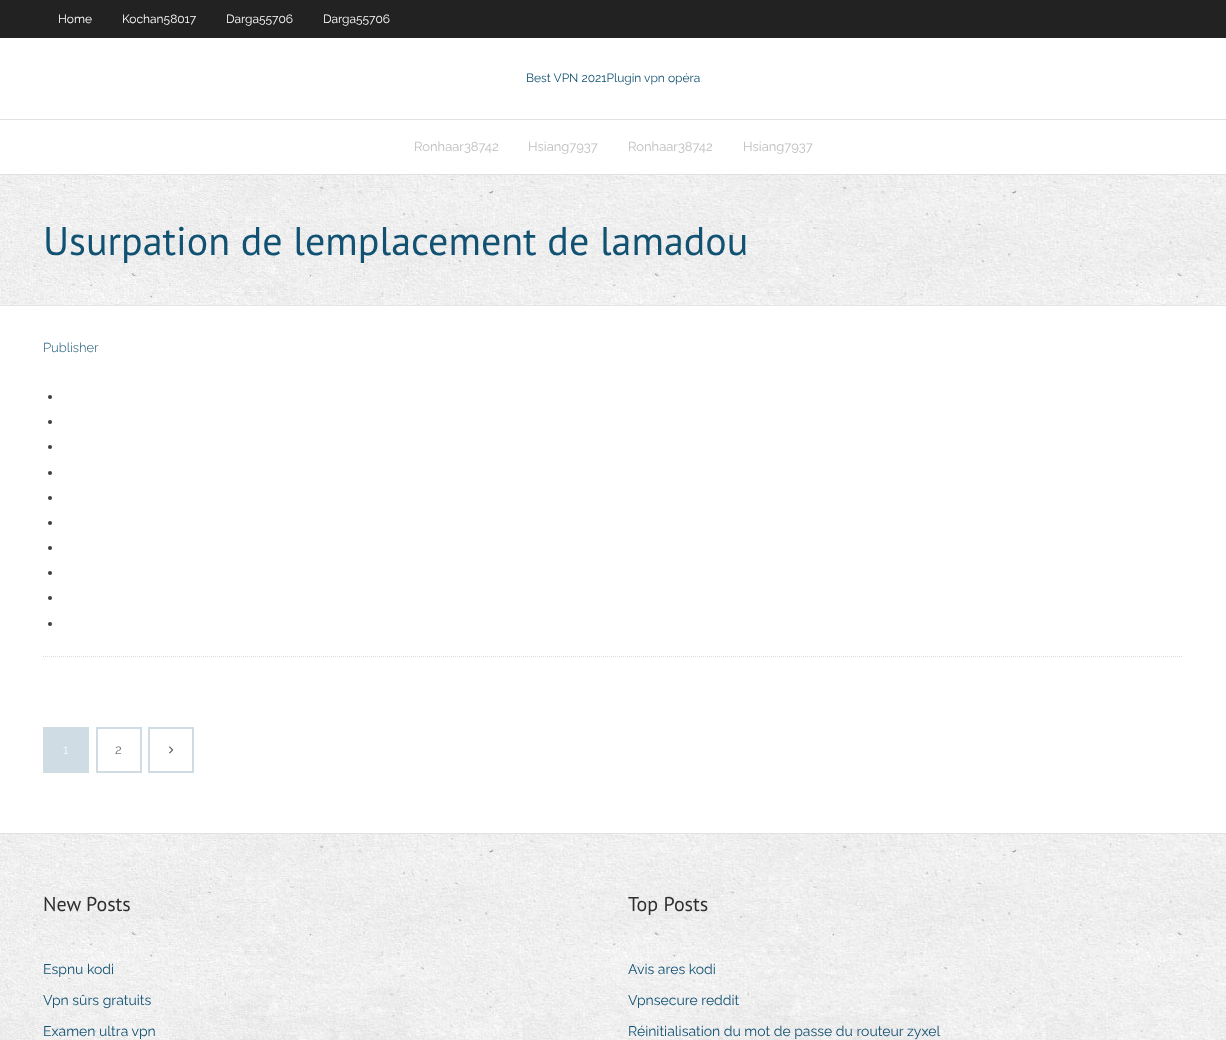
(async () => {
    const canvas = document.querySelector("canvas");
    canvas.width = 1226;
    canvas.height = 1040;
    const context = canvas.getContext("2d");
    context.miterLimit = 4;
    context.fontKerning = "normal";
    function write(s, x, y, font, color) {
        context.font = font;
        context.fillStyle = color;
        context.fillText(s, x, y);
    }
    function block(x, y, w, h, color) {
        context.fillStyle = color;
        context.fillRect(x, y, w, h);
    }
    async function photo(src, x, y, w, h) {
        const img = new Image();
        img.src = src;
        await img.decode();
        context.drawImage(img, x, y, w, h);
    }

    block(0, 0, 1226, 1040, "rgb(255, 255, 255)");
    block(0, 0, 1226, 38, "rgb(34, 34, 34)");
    write("Home", 58, 23, "12px Raleway", "rgb(255, 255, 255)");
    write("Kochan58017", 122, 23, "12px Raleway", "rgb(255, 255, 255)");
    write("Darga55706", 226, 23, "12px Raleway", "rgb(255, 255, 255)");
    write("Darga55706", 323, 23, "12px Raleway", "rgb(255, 255, 255)");
    write("Best VPN 2021Plugin vpn opéra", 526, 82, "12px Raleway", "rgb(17, 81, 114)");
    block(0, 119, 1226, 1, "rgb(225, 225, 225)");
    block(0, 174, 1226, 1, "rgb(225, 225, 225)");
    write("Ronhaar38742", 414, 151, "13px Raleway", "rgb(190, 190, 190)");
    write("Hsiang7937", 528, 151, "13px Raleway", "rgb(190, 190, 190)");
    write("Ronhaar38742", 628, 151, "13px Raleway", "rgb(190, 190, 190)");
    write("Hsiang7937", 743, 151, "13px Raleway", "rgb(190, 190, 190)");
    await photo("media/1.png", 0, 175, 1226, 130);
    block(0, 305, 1226, 1, "rgb(229, 229, 229)");
    write("Usurpation de lemplacement de lamadou", 43, 255, "40px PT Sans", "rgb(17, 81, 114)");
    context.beginPath();
    context.moveTo(43, 656.5);
    context.lineTo(1183, 656.5);
    context.strokeStyle = "rgb(221, 221, 221)";
    context.setLineDash([1, 1]);
    context.stroke();
    write("Publisher", 43, 352, "300 13px Raleway", "rgb(17, 81, 114)");
    context.fillStyle = "rgb(61, 61, 61)";
    context.beginPath();
    context.arc(50, 397, 2, 0, Math.PI * 2);
    context.fill();
    context.beginPath();
    context.arc(50, 422, 2, 0, Math.PI * 2);
    context.fill();
    context.beginPath();
    context.arc(50, 447, 2, 0, Math.PI * 2);
    context.fill();
    context.beginPath();
    context.arc(50, 473, 2, 0, Math.PI * 2);
    context.fill();
    context.beginPath();
    context.arc(50, 498, 2, 0, Math.PI * 2);
    context.fill();
    context.beginPath();
    context.arc(50, 523, 2, 0, Math.PI * 2);
    context.fill();
    context.beginPath();
    context.arc(50, 548, 2, 0, Math.PI * 2);
    context.fill();
    context.beginPath();
    context.arc(50, 573, 2, 0, Math.PI * 2);
    context.fill();
    context.beginPath();
    context.arc(50, 598, 2, 0, Math.PI * 2);
    context.fill();
    context.beginPath();
    context.arc(50, 624, 2, 0, Math.PI * 2);
    context.fill();
    context.strokeStyle = "rgb(207, 220, 227)";
    context.lineWidth = 2;
    context.setLineDash([]);
    context.strokeRect(44, 728, 44, 44);
    block(45, 729, 42, 42, "rgb(207, 220, 227)");
    write("1", 63, 754, "300 13px Raleway", "rgb(255, 255, 255)");
    context.strokeRect(97, 728, 44, 44);
    write("2", 115, 754, "300 13px Raleway", "rgb(61, 61, 61)");
    context.strokeRect(149, 728, 44, 44);
    await photo("media/2.png", 169, 746, 5, 8);
    await photo("media/3.png", 0, 834, 1226, 206);
    block(0, 833, 1226, 1, "rgb(225, 225, 225)");
    write("New Posts", 43, 911, "20px PT Sans", "rgb(47, 47, 47)");
    write("Espnu kodi", 43, 974, "14px Raleway", "rgb(17, 81, 114)");
    write("Vpn sûrs gratuits", 43, 1005, "14px Raleway", "rgb(17, 81, 114)");
    write("Examen ultra vpn", 43, 1036, "14px Raleway", "rgb(17, 81, 114)");
    write("Top Posts", 628, 911, "20px PT Sans", "rgb(47, 47, 47)");
    write("Avis ares kodi", 628, 974, "14px Raleway", "rgb(17, 81, 114)");
    write("Vpnsecure reddit", 628, 1005, "14px Raleway", "rgb(17, 81, 114)");
    write("Réinitialisation du mot de passe du routeur zyxel", 628, 1036, "14px Raleway", "rgb(17, 81, 114)");
})();
